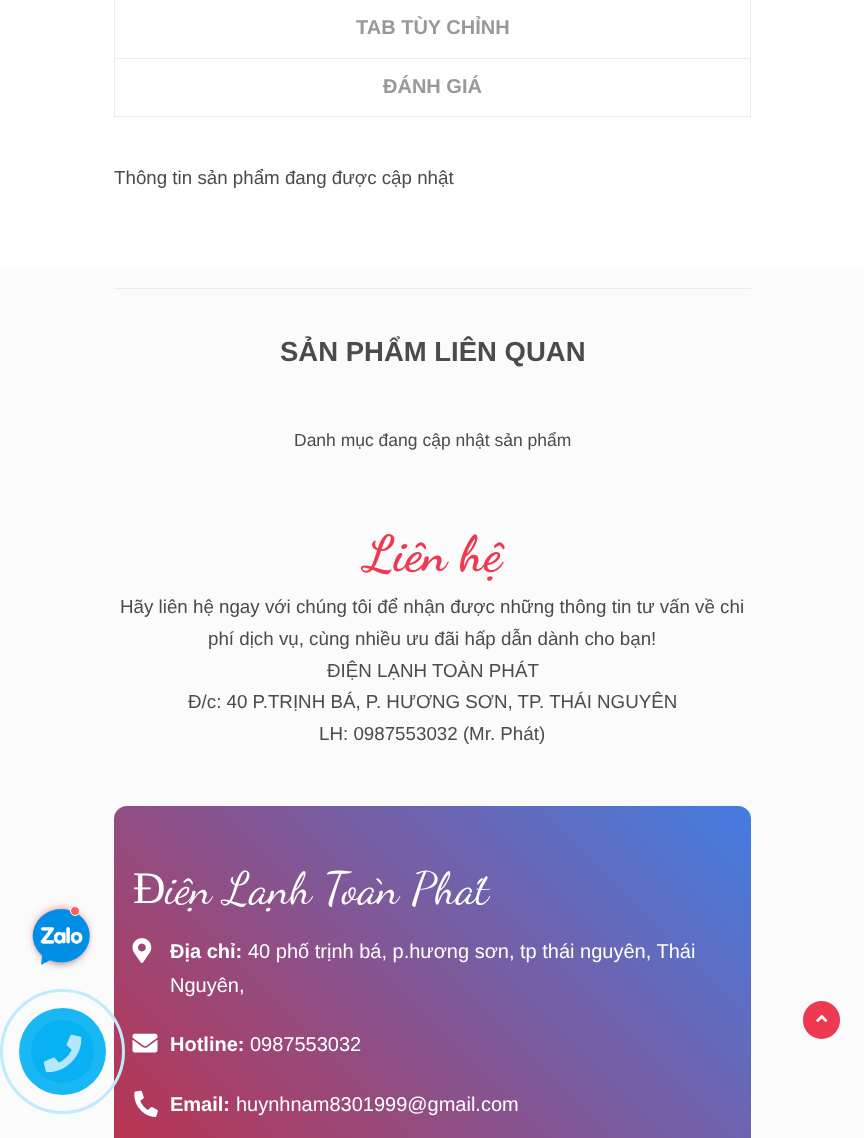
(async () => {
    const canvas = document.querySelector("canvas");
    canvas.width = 864;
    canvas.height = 1138;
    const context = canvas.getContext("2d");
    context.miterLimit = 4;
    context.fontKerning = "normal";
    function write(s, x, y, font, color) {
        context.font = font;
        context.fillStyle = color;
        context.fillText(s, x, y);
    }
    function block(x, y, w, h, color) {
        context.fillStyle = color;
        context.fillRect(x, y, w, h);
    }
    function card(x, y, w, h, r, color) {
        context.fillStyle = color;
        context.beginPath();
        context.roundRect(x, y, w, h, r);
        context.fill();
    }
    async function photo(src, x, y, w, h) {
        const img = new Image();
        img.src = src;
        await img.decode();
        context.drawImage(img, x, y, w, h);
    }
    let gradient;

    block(0, 0, 864, 1138, "rgb(255, 255, 255)");
    block(0, 269, 864, 869, "rgb(251, 251, 251)");
    context.fillStyle = "rgb(255, 93, 93)";
    context.filter = "blur(5px)";
    context.beginPath();
    context.roundRect(36, 910, 50, 50, 25);
    context.fill();
    context.filter = "none";
    await photo("media/1.png", 31, 908, 61, 62);
    context.beginPath();
    context.arc(75, 911, 4.5, 0, Math.PI * 2);
    context.fill();
    context.strokeStyle = "rgb(255, 255, 255)";
    context.stroke();
    block(750, 0, 1, 118, "rgb(235, 235, 235)");
    block(114, 58, 637, 1, "rgb(235, 235, 235)");
    block(114, 0, 1, 59, "rgb(235, 235, 235)");
    write("TAB TÙY CHỈNH", 356, 34, "bold 20px Liberation Sans", "rgb(153, 153, 153)");
    block(114, 116, 637, 1, "rgb(235, 235, 235)");
    block(114, 59, 1, 59, "rgb(235, 235, 235)");
    write("ĐÁNH GIÁ", 383, 93, "bold 20px Liberation Sans", "rgb(153, 153, 153)");
    write("Thông tin sản phẩm đang được cập nhật", 114, 184, "18.75px Liberation Sans", "rgb(75, 75, 75)");
    block(114, 288, 637, 1, "rgb(235, 235, 235)");
    write("SẢN PHẨM LIÊN QUAN", 280, 361, "bold 27.5px Liberation Sans", "rgb(75, 75, 75)");
    write("Danh mục đang cập nhật sản phẩm", 294, 446, "17.5px Liberation Sans", "rgb(75, 75, 75)");
    write("Liên hệ", 364, 570, "bold 50px Dancing Script", "rgb(237, 57, 82)");
    write("Hãy liên hệ ngay với chúng tôi để nhận được những thông tin tư vấn về chi", 120, 613, "18.75px Liberation Sans", "rgb(75, 75, 75)");
    write("phí dịch vụ, cùng nhiều ưu đãi hấp dẫn dành cho bạn!", 208, 645, "18.75px Liberation Sans", "rgb(75, 75, 75)");
    write("ĐIỆN LẠNH TOÀN PHÁT", 327, 677, "18.75px Liberation Sans", "rgb(75, 75, 75)");
    write("Đ/c: 40 P.TRỊNH BÁ, P. HƯƠNG SƠN, TP. THÁI NGUYÊN", 188, 708, "18.75px Liberation Sans", "rgb(75, 75, 75)");
    write("LH: 0987553032 (Mr. Phát)", 319, 740, "18.75px Liberation Sans", "rgb(75, 75, 75)");
    gradient = context.createLinearGradient(159, 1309, 706, 761);
    gradient.addColorStop(0, "rgb(201, 43, 62)");
    gradient.addColorStop(1, "rgb(68, 125, 225)");
    context.fillStyle = gradient;
    context.beginPath();
    context.roundRect(114, 806, 637, 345, 13);
    context.fill();
    write("Đ", 133, 903, "45px Liberation Serif", "rgb(255, 255, 255)");
    context.wordSpacing = "0.5px";
    write("iện Lạnh Toàn Phát", 165, 903, "45px Dancing Script", "rgb(255, 255, 255)");
    await photo("media/2.png", 132, 938, 20, 26);
    context.wordSpacing = "0px";
    write("Địa chỉ:", 170, 958, "bold 20px Liberation Sans", "rgb(255, 255, 255)");
    write("40 phố trịnh bá, p.hương sơn, tp thái nguyên, Thái", 248, 958, "20px Liberation Sans", "rgb(255, 255, 255)");
    write("Nguyên,", 170, 992, "20px Liberation Sans", "rgb(255, 255, 255)");
    await photo("media/3.png", 132, 1033, 26, 20);
    write("Hotline:", 170, 1051, "bold 20px Liberation Sans", "rgb(255, 255, 255)");
    write("0987553032", 250, 1051, "20px Liberation Sans", "rgb(255, 255, 255)");
    await photo("media/4.png", 134, 1090, 24, 27);
    write("Email:", 170, 1111, "bold 20px Liberation Sans", "rgb(255, 255, 255)");
    write("huynhnam8301999@gmail.com", 236, 1111, "20px Liberation Sans", "rgb(255, 255, 255)");
    card(803, 1001, 37, 38, 18.5, "rgb(237, 57, 82)");
    await photo("media/5.png", 816, 1015, 12, 7);
    context.beginPath();
    context.arc(62.5, 1051.5, 61, 0, Math.PI * 2);
    context.strokeStyle = "rgb(191, 235, 252)";
    context.lineWidth = 3;
    context.stroke();
    context.fillStyle = "rgb(25, 183, 243)";
    context.beginPath();
    context.arc(62.5, 1051.5, 43.5, 0, Math.PI * 2);
    context.fill();
    context.fillStyle = "rgb(8, 177, 242)";
    context.beginPath();
    context.arc(62.5, 1051.5, 31.5, 0, Math.PI * 2);
    context.fill();
    await photo("media/6.png", 43, 1034, 39, 39);
})();
